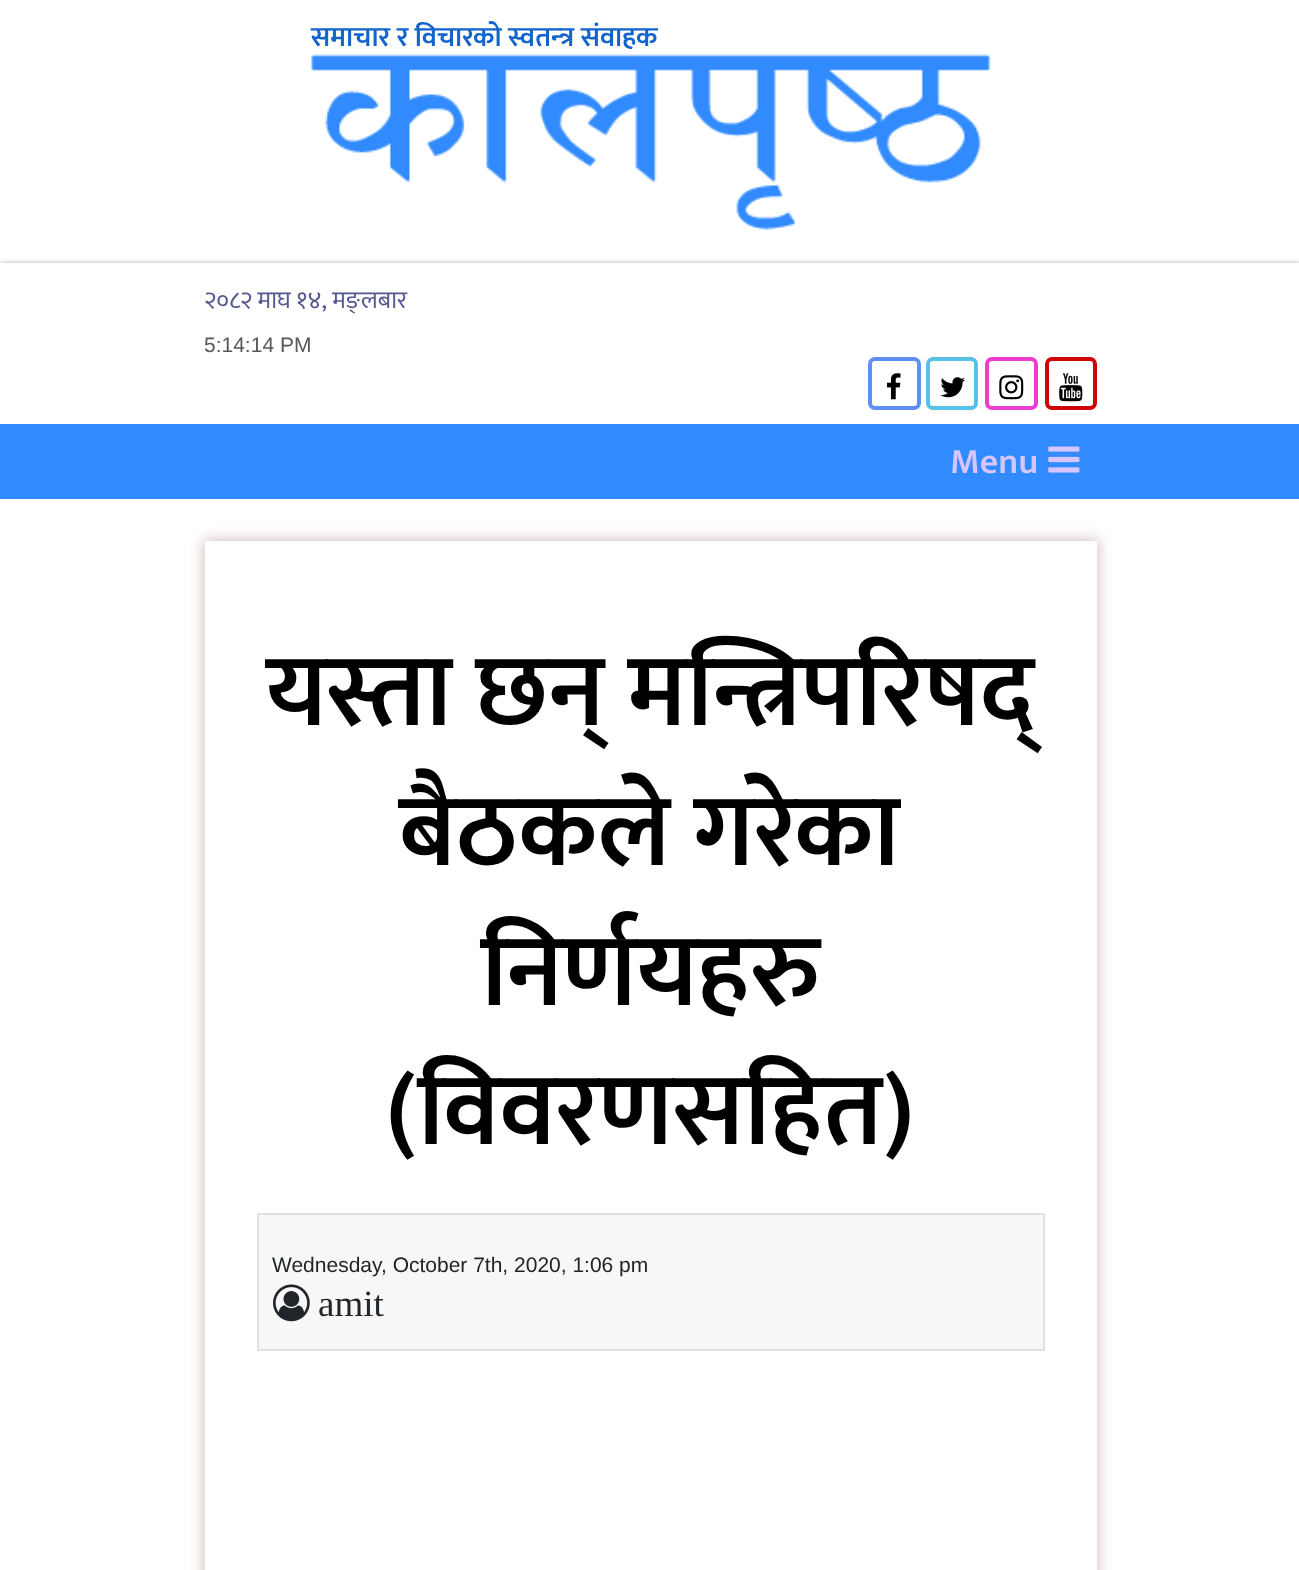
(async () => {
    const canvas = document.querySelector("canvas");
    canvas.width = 1299;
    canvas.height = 1570;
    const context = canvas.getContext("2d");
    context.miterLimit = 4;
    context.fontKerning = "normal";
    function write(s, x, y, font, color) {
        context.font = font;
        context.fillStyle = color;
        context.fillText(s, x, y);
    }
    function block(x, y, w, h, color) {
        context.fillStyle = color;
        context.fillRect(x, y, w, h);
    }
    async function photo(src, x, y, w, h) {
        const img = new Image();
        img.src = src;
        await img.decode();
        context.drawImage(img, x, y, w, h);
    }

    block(0, 0, 1299, 1570, "rgb(255, 255, 255)");
    write("समाचार र विचारको स्वतन्‍‍त्र संवाहक", 311, 46, "600 28px Mukta", "rgb(19, 100, 205)");
    await photo("media/1.png", 311, 54, 680, 176);
    context.save();
    context.beginPath();
    context.moveTo(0, 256);
    context.lineTo(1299, 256);
    context.lineTo(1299, 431);
    context.lineTo(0, 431);
    context.closePath();
    context.moveTo(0, 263);
    context.lineTo(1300, 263);
    context.lineTo(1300, 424);
    context.lineTo(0, 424);
    context.closePath();
    context.clip("evenodd");
    context.fillStyle = "rgb(170, 170, 170)";
    context.filter = "blur(2px)";
    context.beginPath();
    context.rect(0, 263, 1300, 161);
    context.fill();
    context.filter = "none";
    context.restore();
    write("२०८२ माघ १४, मङ्लबार", 204, 308, "24.5px Mukta", "rgb(86, 89, 144)");
    write("5:14:14 PM", 204, 352, "21px Liberation Sans", "rgb(89, 87, 87)");
    context.beginPath();
    context.roundRect(870, 359, 49, 49, 5);
    context.strokeStyle = "rgb(95, 143, 244)";
    context.lineWidth = 4;
    context.stroke();
    await photo("media/2.png", 887, 373, 14, 27);
    context.beginPath();
    context.roundRect(928, 359, 48, 49, 5);
    context.strokeStyle = "rgb(88, 193, 232)";
    context.stroke();
    await photo("media/3.png", 940, 377, 25, 21);
    context.beginPath();
    context.roundRect(987, 359, 49, 49, 5);
    context.strokeStyle = "rgb(236, 61, 208)";
    context.stroke();
    await photo("media/4.png", 999, 375, 25, 25);
    context.beginPath();
    context.roundRect(1047, 359, 48, 49, 5);
    context.strokeStyle = "rgb(207, 4, 4)";
    context.stroke();
    await photo("media/5.png", 1059, 373, 24, 29);
    block(0, 424, 1299, 75, "rgb(49, 139, 255)");
    write("Menu", 950, 473, "600 36px Mukta", "rgb(213, 198, 255)");
    await photo("media/6.png", 1048, 446, 32, 27);
    context.save();
    context.beginPath();
    context.moveTo(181, 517);
    context.lineTo(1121, 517);
    context.lineTo(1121, 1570);
    context.lineTo(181, 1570);
    context.closePath();
    context.moveTo(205, 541);
    context.lineTo(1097, 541);
    context.lineTo(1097, 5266);
    context.lineTo(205, 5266);
    context.closePath();
    context.clip("evenodd");
    context.fillStyle = "rgb(216, 196, 196)";
    context.filter = "blur(7px)";
    context.beginPath();
    context.rect(203, 539, 896, 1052);
    context.fill();
    context.filter = "none";
    context.restore();
    write("यस्ता छन् मन्त्रिपरिषद्", 266, 725, "600 103.5px Mukta", "rgb(0, 0, 0)");
    write("बैठकले गरेका", 399, 865, "600 103.5px Mukta", "rgb(0, 0, 0)");
    write("निर्णयहरु", 481, 1005, "600 103.5px Mukta", "rgb(0, 0, 0)");
    write("(विवरणसहित)", 386, 1144, "600 103.5px Mukta", "rgb(0, 0, 0)");
    context.fillStyle = "rgb(247, 247, 247)";
    context.beginPath();
    context.rect(258, 1214, 786, 136);
    context.fill();
    context.strokeStyle = "rgb(222, 226, 230)";
    context.lineWidth = 2;
    context.stroke();
    write("Wednesday, October 7th, 2020, 1:06 pm", 272, 1272, "21px Liberation Sans", "rgb(33, 37, 41)");
    await photo("media/7.png", 273, 1284, 37, 38);
    write("amit", 318, 1316, "37px Liberation Serif", "rgb(33, 37, 41)");
})();
